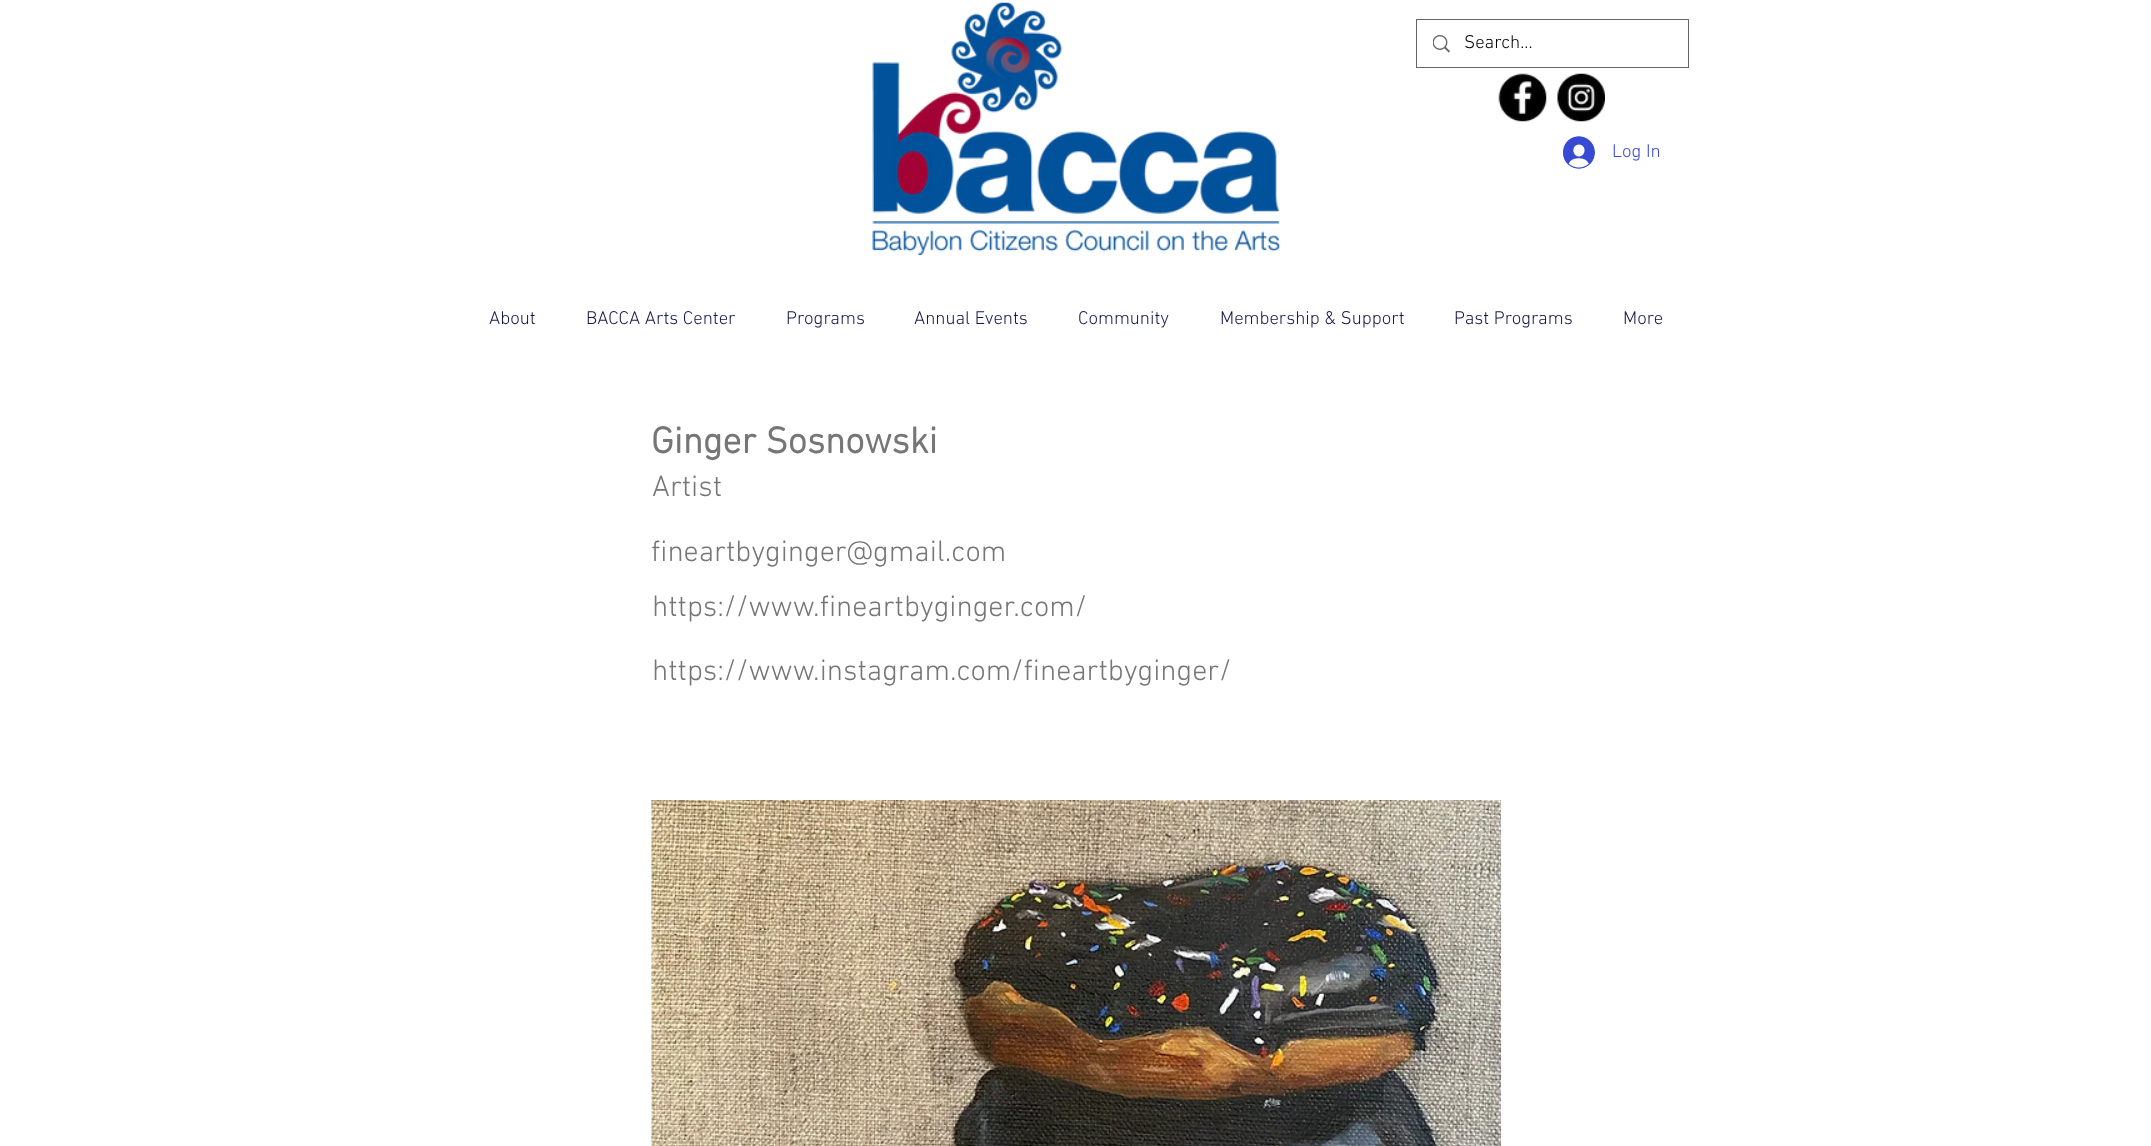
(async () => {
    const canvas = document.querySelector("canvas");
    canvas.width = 2151;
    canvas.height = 1146;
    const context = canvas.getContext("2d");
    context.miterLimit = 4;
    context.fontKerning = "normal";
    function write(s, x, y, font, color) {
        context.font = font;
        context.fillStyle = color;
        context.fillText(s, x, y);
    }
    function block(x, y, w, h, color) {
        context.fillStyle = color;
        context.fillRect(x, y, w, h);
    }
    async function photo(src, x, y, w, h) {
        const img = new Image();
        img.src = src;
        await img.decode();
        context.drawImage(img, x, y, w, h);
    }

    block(0, 0, 2151, 1146, "rgb(255, 255, 255)");
    await photo("media/1.png", 872, 2, 408, 253);
    context.strokeStyle = "rgb(102, 102, 102)";
    context.strokeRect(1416.5, 19.5, 272, 48);
    await photo("media/2.png", 1433, 35, 17, 18);
    write("Search...", 1464, 48, "300 18.75px 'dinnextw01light'", "rgb(0, 0, 0)");
    await photo("media/3.png", 1498, 73, 49, 49);
    await photo("media/4.png", 1557, 73, 48, 49);
    await photo("media/5.png", 1563, 136, 32, 33);
    write("Log In", 1612, 157, "300 18.75px 'dinnextw01light'", "rgb(56, 74, 211)");
    write("About", 489, 324, "300 18.75px 'dinnextw01light'", "rgb(19, 25, 70)");
    write("BACCA Arts Center", 586, 324, "300 18.75px 'dinnextw01light'", "rgb(19, 25, 70)");
    write("Programs", 786, 324, "300 18.75px 'dinnextw01light'", "rgb(19, 25, 70)");
    write("Annual Events", 914, 324, "300 18.75px 'dinnextw01light'", "rgb(19, 25, 70)");
    write("Community", 1078, 324, "300 18.75px 'dinnextw01light'", "rgb(19, 25, 70)");
    write("Membership & Support", 1220, 324, "300 18.75px 'dinnextw01light'", "rgb(19, 25, 70)");
    write("Past Programs", 1454, 324, "300 18.75px 'dinnextw01light'", "rgb(19, 25, 70)");
    write("More", 1623, 324, "300 18.75px 'dinnextw01light'", "rgb(19, 25, 70)");
    write("Ginger Sosnowski", 651, 453, "bold 37.5px 'dinnextw01light'", "rgb(118, 118, 118)");
    write("Artist", 652, 496, "300 30px 'dinnextw01light'", "rgb(118, 118, 118)");
    write("fineartbyginger@gmail.com", 651, 561, "300 30px 'dinnextw01light'", "rgb(118, 118, 118)");
    write("https://www.fineartbyginger.com/", 652, 616, "300 30px 'dinnextw01light'", "rgb(118, 118, 118)");
    write("https://www.instagram.com/fineartbyginger/", 652, 680, "300 30px 'dinnextw01light'", "rgb(118, 118, 118)");
    await photo("media/6.png", 651, 800, 851, 346);
})();
